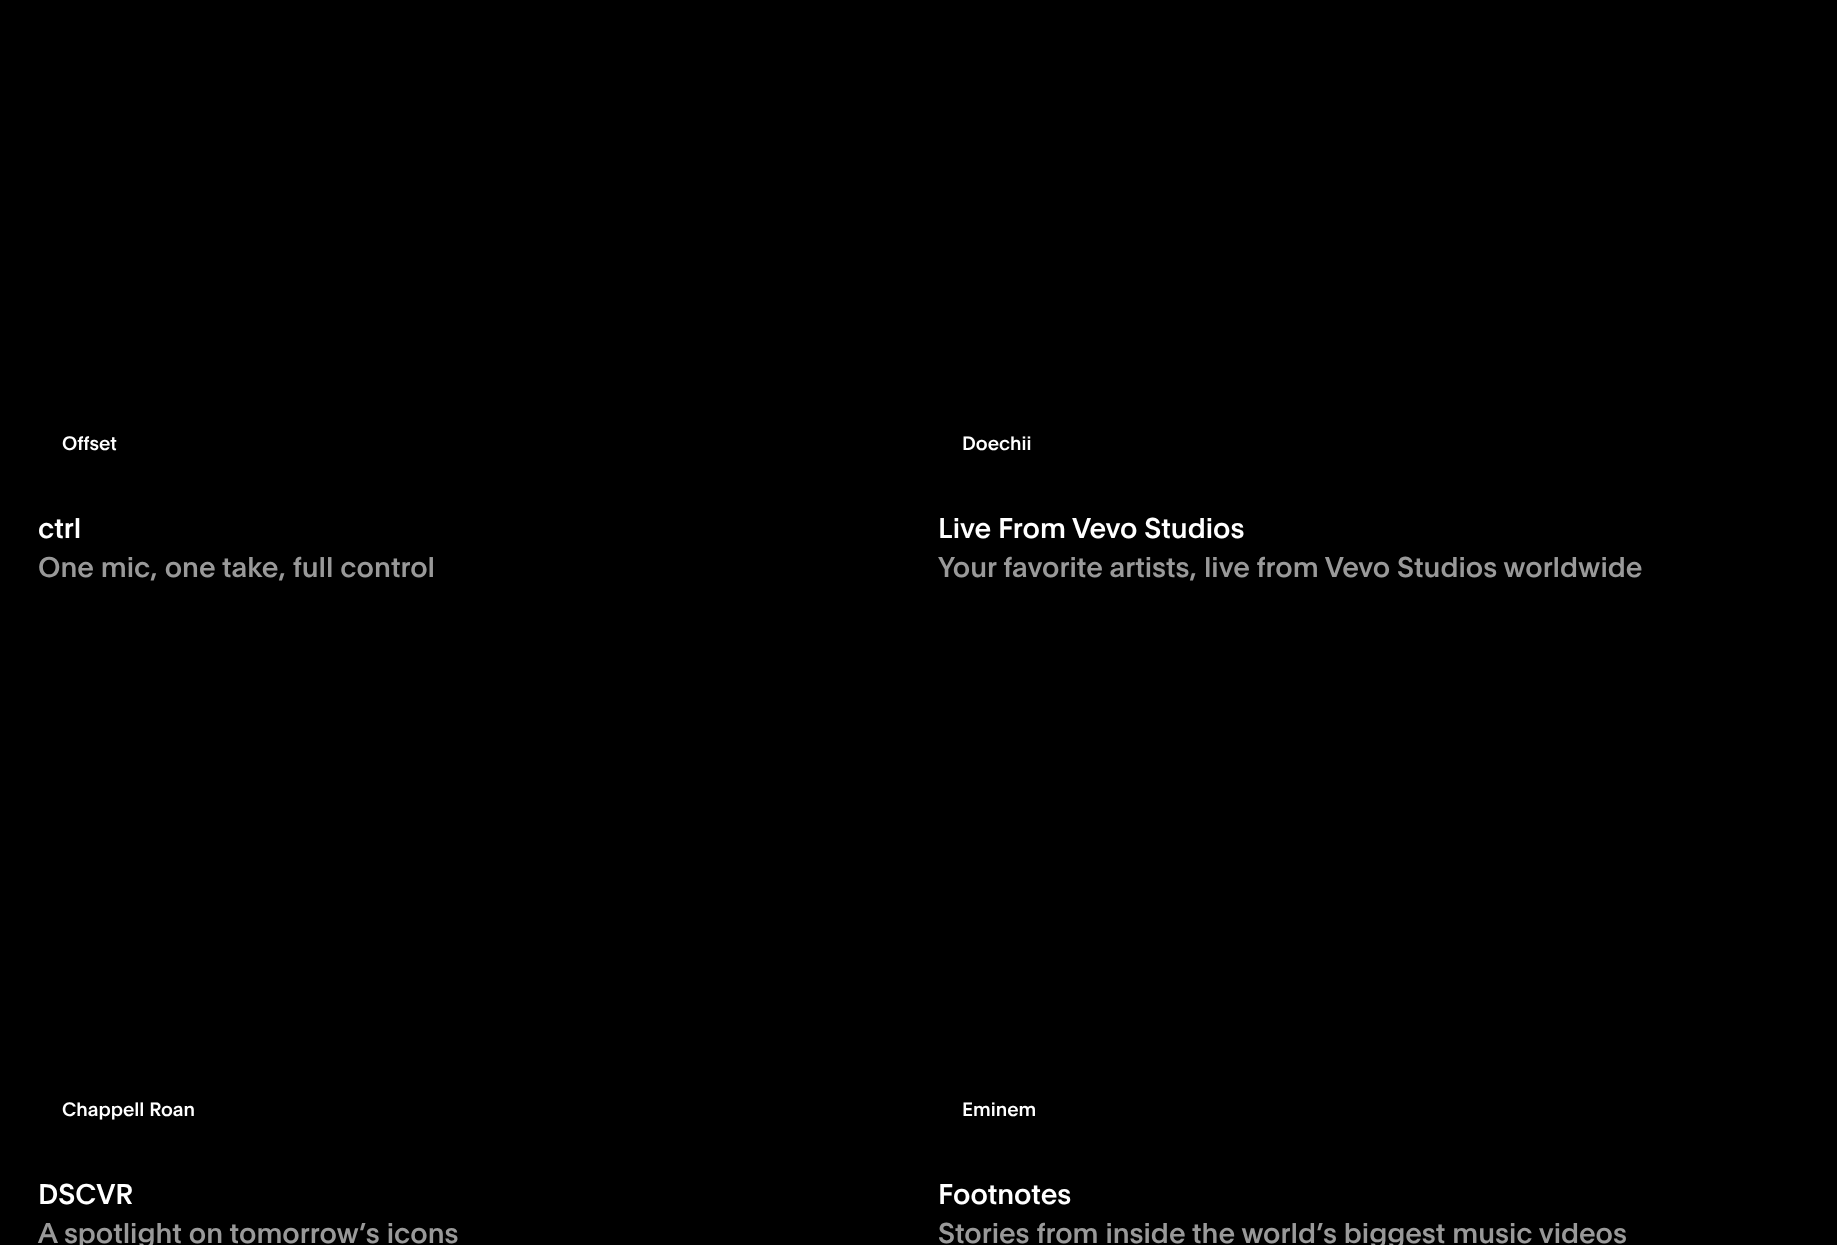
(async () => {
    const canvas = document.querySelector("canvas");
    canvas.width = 1837;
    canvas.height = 1245;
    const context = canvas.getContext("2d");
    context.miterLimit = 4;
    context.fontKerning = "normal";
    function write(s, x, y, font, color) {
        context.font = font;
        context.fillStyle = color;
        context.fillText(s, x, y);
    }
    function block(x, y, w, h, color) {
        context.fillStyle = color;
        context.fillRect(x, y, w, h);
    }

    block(0, 0, 1837, 1245, "rgb(0, 0, 0)");
    write("Offset", 62, 450, "500 19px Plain", "rgb(255, 255, 255)");
    write("ctrl", 38, 538, "500 27.9px Plain", "rgb(255, 255, 255)");
    write("One mic, one take, full control", 38, 577, "500 27.9px Plain", "rgb(153, 153, 153)");
    write("Doechii", 962, 450, "500 19px Plain", "rgb(255, 255, 255)");
    write("Live From Vevo Studios", 938, 538, "500 27.9px Plain", "rgb(255, 255, 255)");
    write("Your favorite artists, live from Vevo Studios worldwide", 938, 577, "500 27.9px Plain", "rgb(153, 153, 153)");
    write("Chappell Roan", 62, 1116, "500 19px Plain", "rgb(255, 255, 255)");
    write("DSCVR", 38, 1204, "500 27.9px Plain", "rgb(255, 255, 255)");
    write("A spotlight on tomorrow’s icons", 38, 1243, "500 27.9px Plain", "rgb(153, 153, 153)");
    write("Eminem", 962, 1116, "500 19px Plain", "rgb(255, 255, 255)");
    write("Footnotes", 938, 1204, "500 27.9px Plain", "rgb(255, 255, 255)");
    write("Stories from inside the world’s biggest music videos", 938, 1243, "500 27.9px Plain", "rgb(153, 153, 153)");
})();
